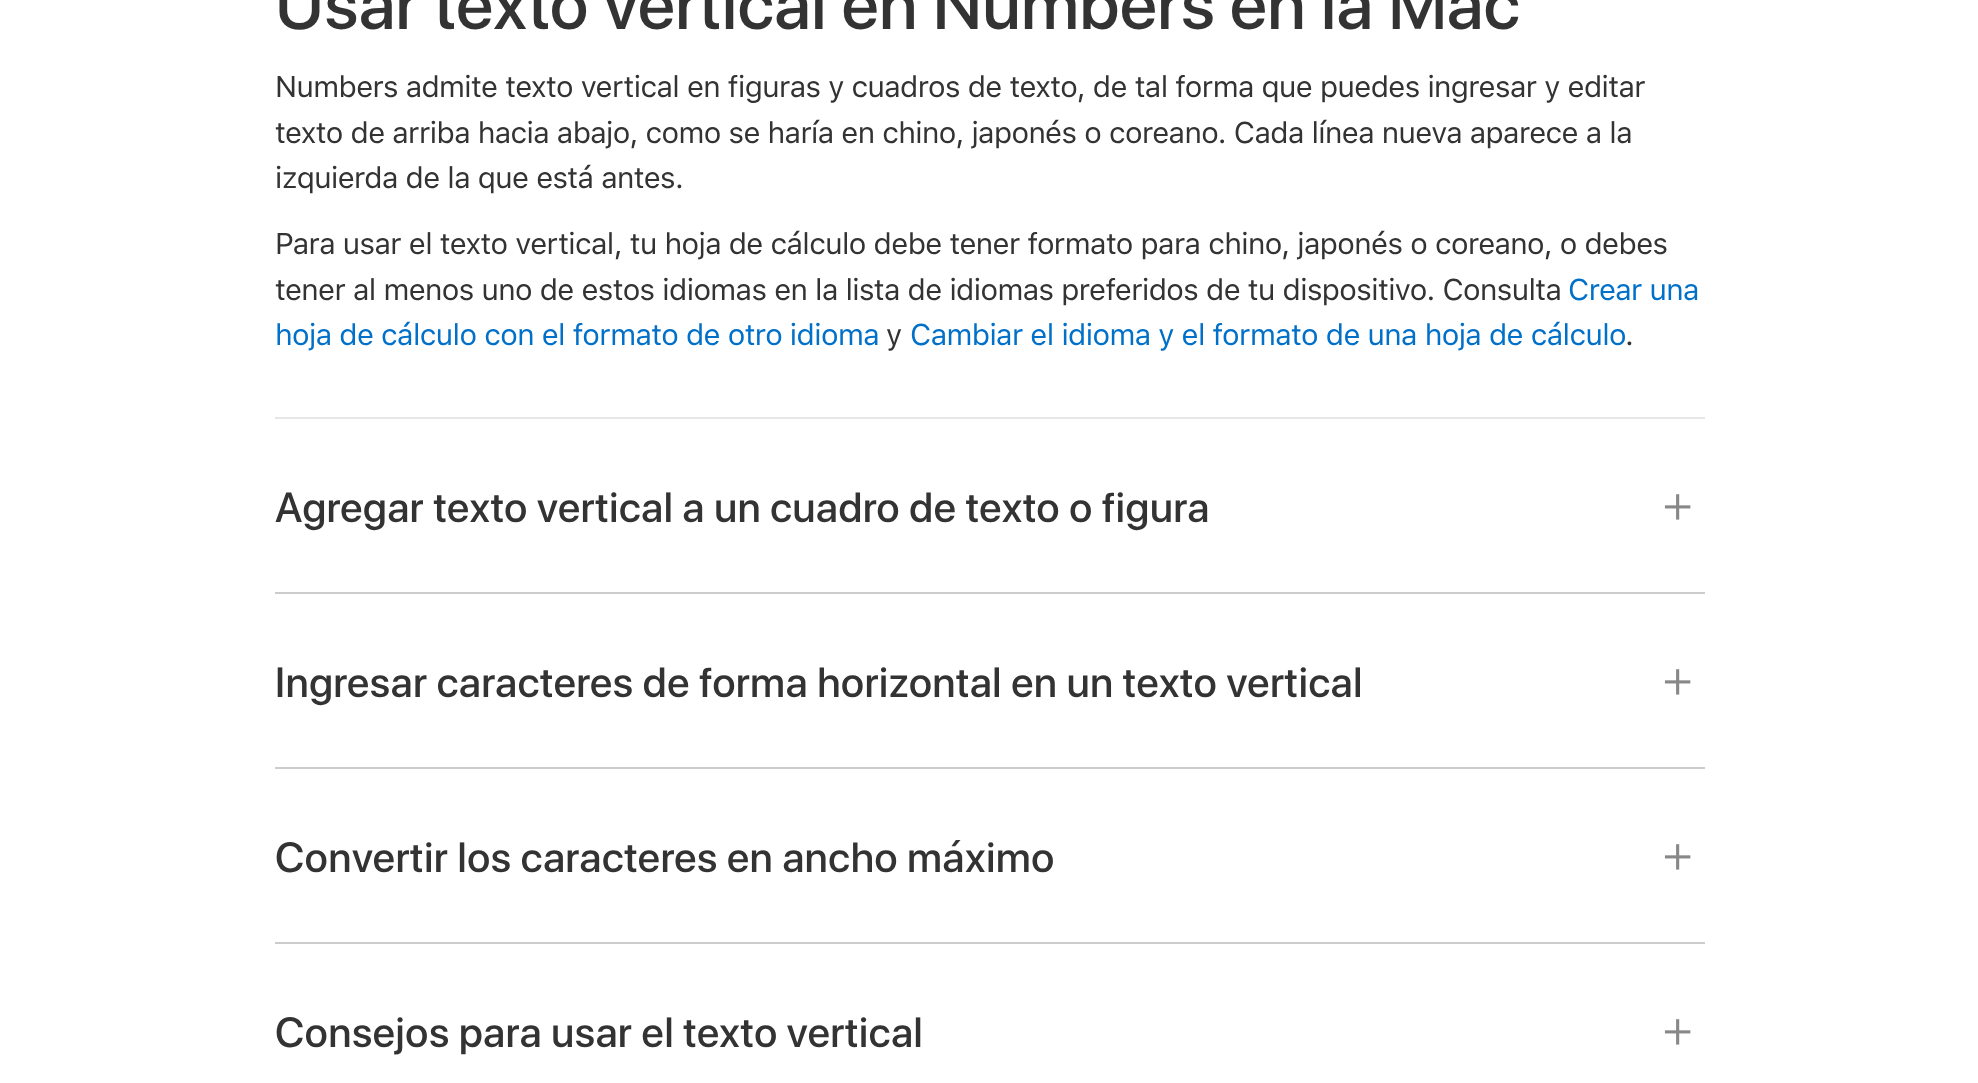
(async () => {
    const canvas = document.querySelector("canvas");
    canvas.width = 1978;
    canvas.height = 1083;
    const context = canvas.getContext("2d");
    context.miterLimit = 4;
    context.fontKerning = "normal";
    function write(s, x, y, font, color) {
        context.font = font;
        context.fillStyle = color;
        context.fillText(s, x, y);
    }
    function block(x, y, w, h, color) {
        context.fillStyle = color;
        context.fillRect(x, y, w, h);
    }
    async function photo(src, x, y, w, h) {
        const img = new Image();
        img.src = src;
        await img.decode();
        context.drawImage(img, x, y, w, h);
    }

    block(0, 0, 1978, 1083, "rgb(255, 255, 255)");
    context.letterSpacing = "0.55px";
    write("Usar texto vertical en Numbers en la Mac", 275, 29, "500 70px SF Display", "rgb(51, 51, 51)");
    context.letterSpacing = "-0.62px";
    write("Numbers admite texto vertical en figuras y cuadros de texto, de tal forma que puedes ingresar y editar", 275, 97, "29.75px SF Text", "rgb(51, 51, 51)");
    write("texto de arriba hacia abajo, como se haría en chino, japonés o coreano. Cada línea nueva aparece a la", 275, 143, "29.75px SF Text", "rgb(51, 51, 51)");
    write("izquierda de la que está antes.", 275, 188, "29.75px SF Text", "rgb(51, 51, 51)");
    write("Para usar el texto vertical, tu hoja de cálculo debe tener formato para chino, japonés o coreano, o debes", 275, 254, "29.75px SF Text", "rgb(51, 51, 51)");
    write("tener al menos uno de estos idiomas en la lista de idiomas preferidos de tu dispositivo. Consulta", 275, 300, "29.75px SF Text", "rgb(51, 51, 51)");
    write("Crear una", 1568, 300, "29.75px SF Text", "rgb(0, 112, 201)");
    write("hoja de cálculo con el formato de otro idioma", 275, 345, "29.75px SF Text", "rgb(0, 112, 201)");
    write("y", 886, 345, "29.75px SF Text", "rgb(51, 51, 51)");
    write("Cambiar el idioma y el formato de una hoja de cálculo", 910, 345, "29.75px SF Text", "rgb(0, 112, 201)");
    write(".", 1625, 345, "29.75px SF Text", "rgb(51, 51, 51)");
    block(275, 417, 1430, 2, "rgb(230, 230, 230)");
    context.letterSpacing = "0.63px";
    write("Agregar texto vertical a un cuadro de texto o figura", 275, 522, "500 42px SF Display", "rgb(51, 51, 51)");
    await photo("media/1.png", 1664, 494, 27, 26);
    block(275, 592, 1430, 2, "rgb(204, 204, 204)");
    write("Ingresar caracteres de forma horizontal en un texto vertical", 275, 697, "500 42px SF Display", "rgb(51, 51, 51)");
    await photo("media/2.png", 1664, 669, 27, 26);
    block(275, 767, 1430, 2, "rgb(204, 204, 204)");
    write("Convertir los caracteres en ancho máximo", 275, 872, "500 42px SF Display", "rgb(51, 51, 51)");
    await photo("media/3.png", 1664, 844, 27, 26);
    block(275, 942, 1430, 2, "rgb(204, 204, 204)");
    write("Consejos para usar el texto vertical", 275, 1047, "500 42px SF Display", "rgb(51, 51, 51)");
    await photo("media/4.png", 1664, 1019, 27, 26);
})();
